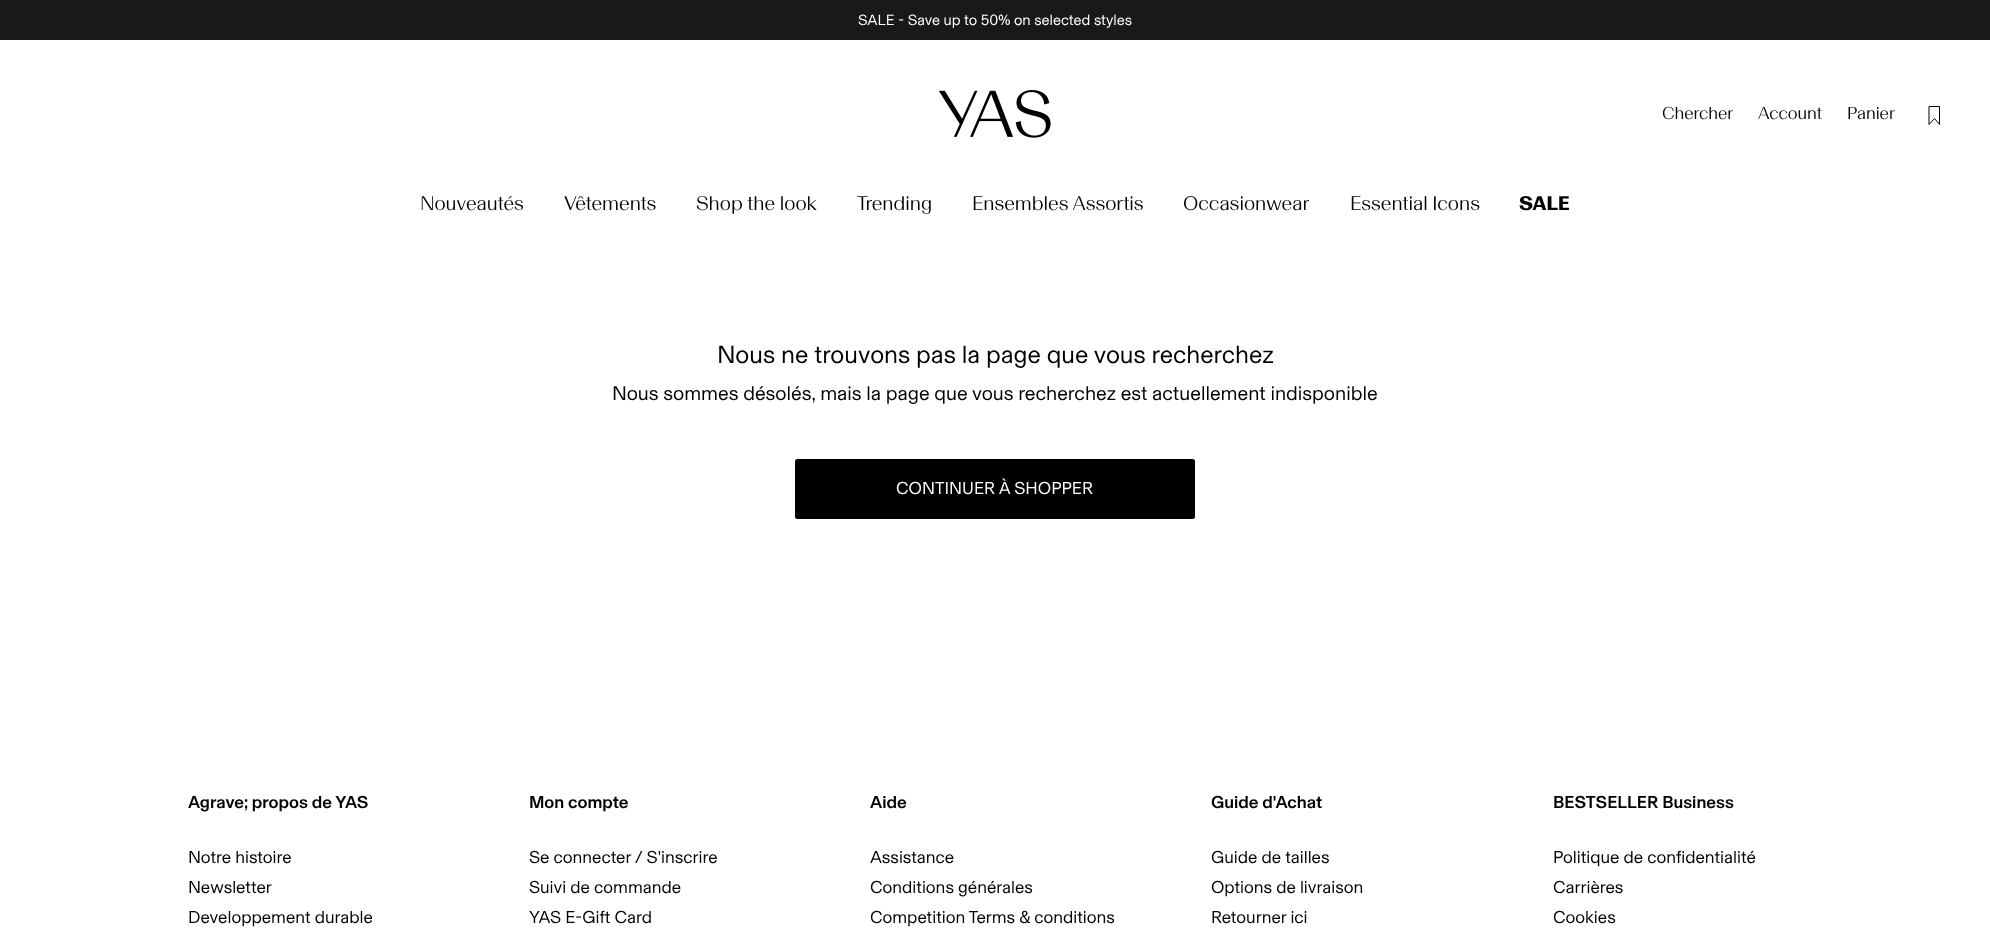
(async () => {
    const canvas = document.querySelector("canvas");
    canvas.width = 1990;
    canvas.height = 931;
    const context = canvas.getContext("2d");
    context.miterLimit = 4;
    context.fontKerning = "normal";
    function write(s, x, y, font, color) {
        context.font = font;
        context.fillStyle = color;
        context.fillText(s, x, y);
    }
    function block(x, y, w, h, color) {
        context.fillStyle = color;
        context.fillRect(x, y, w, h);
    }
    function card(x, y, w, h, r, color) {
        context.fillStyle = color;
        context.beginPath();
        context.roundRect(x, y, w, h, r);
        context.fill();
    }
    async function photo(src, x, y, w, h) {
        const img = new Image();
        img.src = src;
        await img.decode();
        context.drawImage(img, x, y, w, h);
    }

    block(0, 0, 1990, 931, "rgb(255, 255, 255)");
    block(0, 0, 1990, 40, "rgb(26, 25, 24)");
    write("SALE - Save up to 50% on selected styles", 858, 25, "15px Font", "rgb(255, 255, 255)");
    await photo("media/1.png", 939, 90, 112, 48);
    write("Chercher", 1662, 119, "17.5px 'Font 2'", "rgb(0, 0, 0)");
    write("Account", 1758, 119, "17.5px 'Font 2'", "rgb(0, 0, 0)");
    write("Panier", 1847, 119, "17.5px 'Font 2'", "rgb(0, 0, 0)");
    context.beginPath();
    context.moveTo(1929, 106.5);
    context.lineTo(1929, 124.5);
    context.lineTo(1934.5, 118.5);
    context.lineTo(1939.5, 124.5);
    context.lineTo(1939.5, 106.5);
    context.closePath();
    context.strokeStyle = "rgb(0, 0, 0)";
    context.stroke();
    write("Nouveautés", 420, 210, "20px 'Font 2'", "rgb(0, 0, 0)");
    write("Vêtements", 564, 210, "20px 'Font 2'", "rgb(0, 0, 0)");
    write("Shop the look", 696, 210, "20px 'Font 2'", "rgb(0, 0, 0)");
    write("Trending", 857, 210, "20px 'Font 2'", "rgb(0, 0, 0)");
    write("Ensembles Assortis", 972, 210, "20px 'Font 2'", "rgb(0, 0, 0)");
    write("Occasionwear", 1183, 210, "20px 'Font 2'", "rgb(0, 0, 0)");
    write("Essential Icons", 1350, 210, "20px 'Font 2'", "rgb(0, 0, 0)");
    write("SALE", 1519, 210, "bold 20px Font", "rgb(0, 0, 0)");
    write("Nous ne trouvons pas la page que vous recherchez", 717, 363, "25px Font", "rgb(0, 0, 0)");
    write("Nous sommes désolés, mais la page que vous recherchez est actuellement indisponible", 612, 400, "20px Font", "rgb(0, 0, 0)");
    card(795, 459, 400, 60, 2.5, "rgb(0, 0, 0)");
    write("CONTINUER À SHOPPER", 896, 494, "17.5px Font", "rgb(255, 255, 255)");
    write("Agrave; propos de YAS", 188, 808, "500 17.5px Font", "rgb(0, 0, 0)");
    write("Notre histoire", 188, 863, "17.5px Font", "rgb(0, 0, 0)");
    write("Newsletter", 188, 893, "17.5px Font", "rgb(0, 0, 0)");
    write("Developpement durable", 188, 923, "17.5px Font", "rgb(0, 0, 0)");
    write("Mon compte", 529, 808, "500 17.5px Font", "rgb(0, 0, 0)");
    write("Se connecter / S'inscrire", 529, 863, "17.5px Font", "rgb(0, 0, 0)");
    write("Suivi de commande", 529, 893, "17.5px Font", "rgb(0, 0, 0)");
    write("YAS E-Gift Card", 529, 923, "17.5px Font", "rgb(0, 0, 0)");
    write("Aide", 870, 808, "500 17.5px Font", "rgb(0, 0, 0)");
    write("Assistance", 870, 863, "17.5px Font", "rgb(0, 0, 0)");
    write("Conditions générales", 870, 893, "17.5px Font", "rgb(0, 0, 0)");
    write("Competition Terms & conditions", 870, 923, "17.5px Font", "rgb(0, 0, 0)");
    write("Guide d'Achat", 1211, 808, "500 17.5px Font", "rgb(0, 0, 0)");
    write("Guide de tailles", 1211, 863, "17.5px Font", "rgb(0, 0, 0)");
    write("Options de livraison", 1211, 893, "17.5px Font", "rgb(0, 0, 0)");
    write("Retourner ici", 1211, 923, "17.5px Font", "rgb(0, 0, 0)");
    write("BESTSELLER Business", 1553, 808, "500 17.5px Font", "rgb(0, 0, 0)");
    write("Politique de confidentialité", 1553, 863, "17.5px Font", "rgb(0, 0, 0)");
    write("Carrières", 1553, 893, "17.5px Font", "rgb(0, 0, 0)");
    write("Cookies", 1553, 923, "17.5px Font", "rgb(0, 0, 0)");
})();
